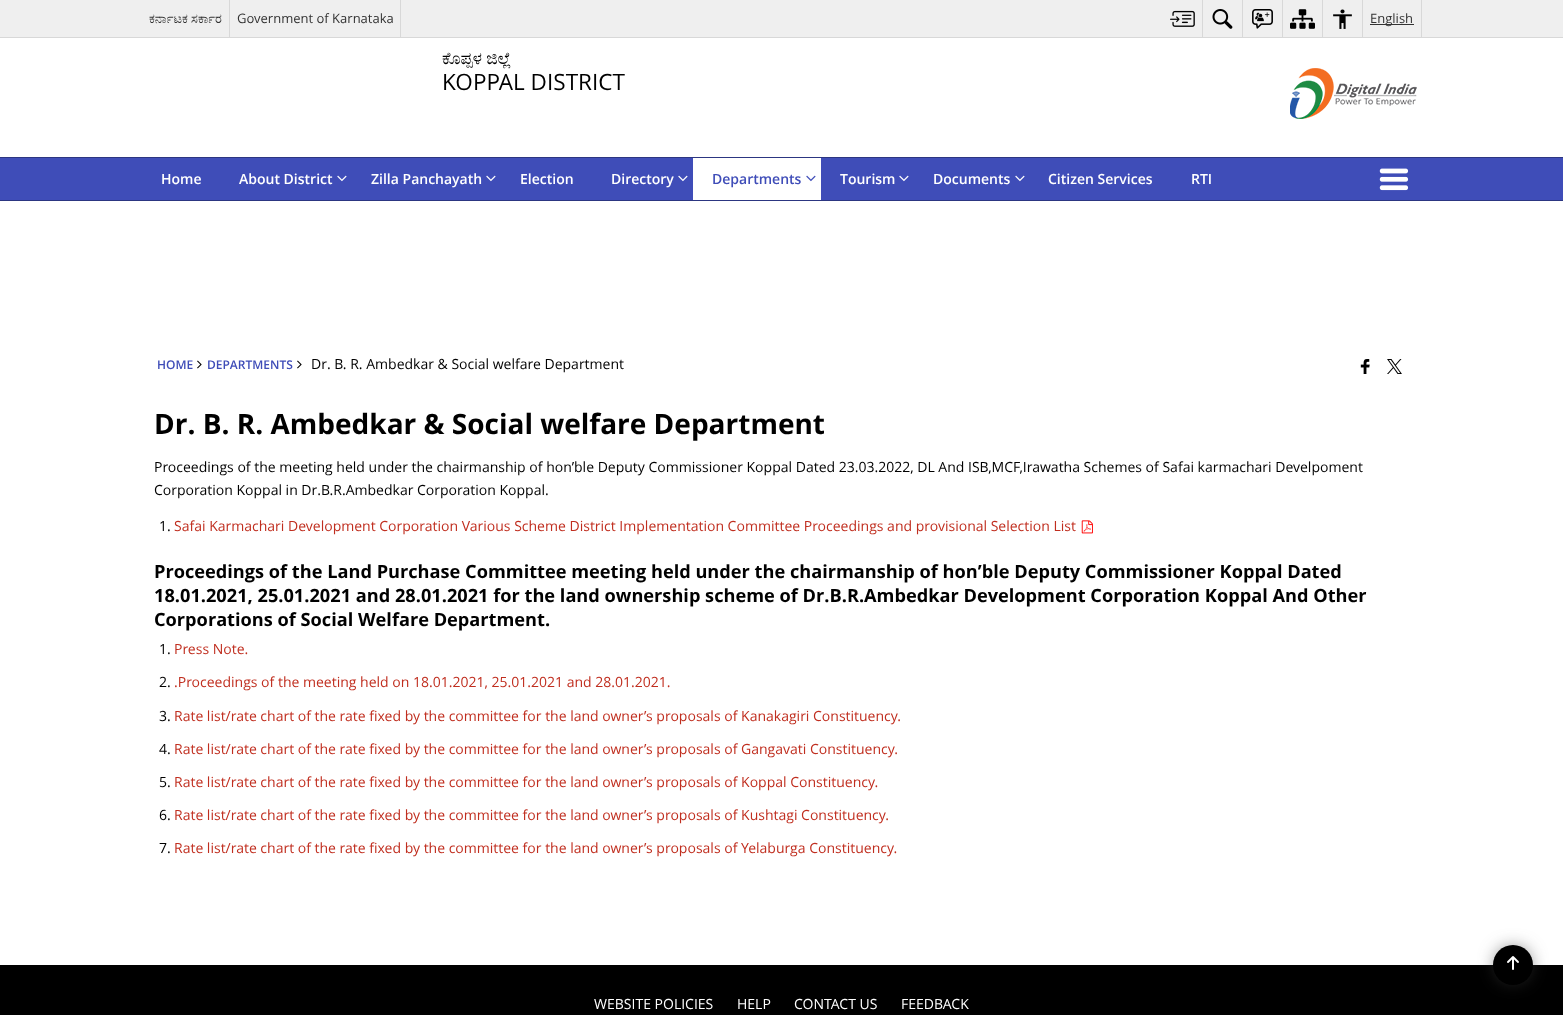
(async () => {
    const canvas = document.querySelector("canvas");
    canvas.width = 1563;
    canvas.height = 1015;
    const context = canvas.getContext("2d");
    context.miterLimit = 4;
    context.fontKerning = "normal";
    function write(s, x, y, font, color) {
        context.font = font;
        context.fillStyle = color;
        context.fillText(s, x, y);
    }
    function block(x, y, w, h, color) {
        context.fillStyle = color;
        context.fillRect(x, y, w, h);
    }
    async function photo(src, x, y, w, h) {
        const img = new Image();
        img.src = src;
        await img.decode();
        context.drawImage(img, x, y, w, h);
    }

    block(0, 0, 1563, 1015, "rgb(255, 255, 255)");
    block(0, 0, 1563, 37, "rgb(239, 239, 239)");
    block(0, 37, 1563, 1, "rgb(216, 216, 216)");
    block(229, 0, 1, 37, "rgb(216, 216, 216)");
    write("ಕರ್ನಾಟಕ ಸರ್ಕಾರ", 149, 23, "13px FreeSerif", "rgb(51, 51, 51)");
    block(400, 0, 1, 37, "rgb(216, 216, 216)");
    write("Government of Karnataka", 237, 23, "13px Open Sans", "rgb(51, 51, 51)");
    block(1202, 0, 1, 37, "rgb(216, 216, 216)");
    await photo("media/1.png", 1170, 10, 25, 17);
    block(1242, 0, 1, 37, "rgb(216, 216, 216)");
    await photo("media/2.png", 1212, 9, 21, 20);
    block(1282, 0, 1, 37, "rgb(216, 216, 216)");
    await photo("media/3.png", 1252, 9, 21, 20);
    block(1322, 0, 1, 37, "rgb(216, 216, 216)");
    await photo("media/4.png", 1290, 9, 25, 20);
    block(1362, 0, 1, 37, "rgb(216, 216, 216)");
    await photo("media/5.png", 1333, 9, 19, 20);
    block(1421, 0, 1, 37, "rgb(216, 216, 216)");
    block(1370, 24, 44, 1, "rgb(51, 51, 51)");
    write("English", 1370, 23, "13px Open Sans", "rgb(51, 51, 51)");
    write("ಕೊಪ್ಪಳ ಜಿಲ್ಲೆ", 442, 64, "17px FreeSerif", "rgb(0, 0, 0)");
    write("KOPPAL DISTRICT", 442, 90, "22.5px Open Sans", "rgb(0, 0, 0)");
    await photo("media/6.png", 1290, 68, 127, 51);
    block(0, 158, 1563, 42, "rgb(63, 77, 184)");
    block(0, 157, 1563, 1, "rgb(44, 54, 129)");
    block(0, 200, 1563, 1, "rgb(44, 54, 129)");
    write("Home", 161, 184, "600 14px Open Sans", "rgb(255, 255, 255)");
    write("About District", 239, 184, "600 14px Open Sans", "rgb(255, 255, 255)");
    await photo("media/7.png", 337, 175, 10, 7);
    write("Zilla Panchayath", 371, 184, "600 14px Open Sans", "rgb(255, 255, 255)");
    await photo("media/7.png", 486, 175, 10, 7);
    write("Election", 520, 184, "600 14px Open Sans", "rgb(255, 255, 255)");
    write("Directory", 611, 184, "600 14px Open Sans", "rgb(255, 255, 255)");
    await photo("media/7.png", 678, 175, 10, 7);
    block(693, 158, 128, 42, "rgb(255, 255, 255)");
    write("Departments", 712, 184, "600 14px Open Sans", "rgb(63, 77, 184)");
    await photo("media/8.png", 806, 175, 10, 7);
    write("Tourism", 840, 184, "600 14px Open Sans", "rgb(255, 255, 255)");
    await photo("media/7.png", 899, 175, 10, 7);
    write("Documents", 933, 184, "600 14px Open Sans", "rgb(255, 255, 255)");
    await photo("media/7.png", 1015, 175, 10, 7);
    write("Citizen Services", 1048, 184, "600 14px Open Sans", "rgb(255, 255, 255)");
    write("RTI", 1191, 184, "600 14px Open Sans", "rgb(255, 255, 255)");
    await photo("media/9.png", 1379, 168, 30, 23);
    write("HOME", 157, 369, "600 12px Open Sans", "rgb(63, 77, 184)");
    await photo("media/10.png", 197, 360, 5, 9);
    write("DEPARTMENTS", 207, 369, "600 12px Open Sans", "rgb(63, 77, 184)");
    await photo("media/10.png", 297, 360, 5, 9);
    write("Dr. B. R. Ambedkar & Social welfare Department", 311, 369, "14px Open Sans", "rgb(0, 0, 0)");
    await photo("media/11.png", 1360, 359, 10, 15);
    await photo("media/12.png", 1387, 359, 15, 15);
    write("Dr. B. R. Ambedkar & Social welfare Department", 154, 434, "bold 28px Open Sans", "rgb(0, 0, 0)");
    write("Proceedings of the meeting held under the chairmanship of hon’ble Deputy Commissioner Koppal Dated 23.03.2022, DL And ISB,MCF,Irawatha Schemes of Safai karmachari Develpoment", 154, 472, "14px Open Sans", "rgb(0, 0, 0)");
    write("Corporation Koppal in Dr.B.R.Ambedkar Corporation Koppal.", 154, 495, "14px Open Sans", "rgb(0, 0, 0)");
    write("1.", 159, 531, "14px Open Sans", "rgb(0, 0, 0)");
    write("Safai Karmachari Development Corporation Various Scheme District Implementation Committee Proceedings and provisional Selection List", 174, 531, "14px Open Sans", "rgb(192, 46, 31)");
    await photo("media/13.png", 1081, 520, 12, 14);
    write("Proceedings of the Land Purchase Committee meeting held under the chairmanship of hon’ble Deputy Commissioner Koppal Dated", 154, 578, "bold 18.2px Open Sans", "rgb(0, 0, 0)");
    write("18.01.2021, 25.01.2021 and 28.01.2021 for the land ownership scheme of Dr.B.R.Ambedkar Development Corporation Koppal And Other", 154, 602, "bold 18.2px Open Sans", "rgb(0, 0, 0)");
    write("Corporations of Social Welfare Department.", 154, 626, "bold 18.2px Open Sans", "rgb(0, 0, 0)");
    write("1.", 159, 654, "14px Open Sans", "rgb(0, 0, 0)");
    write("Press Note.", 174, 654, "14px Open Sans", "rgb(192, 46, 31)");
    write("2.", 159, 687, "14px Open Sans", "rgb(0, 0, 0)");
    write(".Proceedings of the meeting held on 18.01.2021, 25.01.2021 and 28.01.2021.", 174, 687, "14px Open Sans", "rgb(192, 46, 31)");
    write("3.", 159, 721, "14px Open Sans", "rgb(0, 0, 0)");
    write("Rate list/rate chart of the rate fixed by the committee for the land owner’s proposals of Kanakagiri Constituency.", 174, 721, "14px Open Sans", "rgb(192, 46, 31)");
    write("4.", 159, 754, "14px Open Sans", "rgb(0, 0, 0)");
    write("Rate list/rate chart of the rate fixed by the committee for the land owner’s proposals of Gangavati Constituency.", 174, 754, "14px Open Sans", "rgb(192, 46, 31)");
    write("5.", 159, 787, "14px Open Sans", "rgb(0, 0, 0)");
    write("Rate list/rate chart of the rate fixed by the committee for the land owner’s proposals of Koppal Constituency.", 174, 787, "14px Open Sans", "rgb(192, 46, 31)");
    write("6.", 159, 820, "14px Open Sans", "rgb(0, 0, 0)");
    write("Rate list/rate chart of the rate fixed by the committee for the land owner’s proposals of Kushtagi Constituency.", 174, 820, "14px Open Sans", "rgb(192, 46, 31)");
    write("7.", 159, 853, "14px Open Sans", "rgb(0, 0, 0)");
    write("Rate list/rate chart of the rate fixed by the committee for the land owner’s proposals of Yelaburga Constituency.", 174, 853, "14px Open Sans", "rgb(192, 46, 31)");
    block(0, 965, 1563, 50, "rgb(0, 0, 0)");
    write("WEBSITE POLICIES", 594, 1009, "14px Open Sans", "rgb(255, 255, 255)");
    write("HELP", 737, 1009, "14px Open Sans", "rgb(255, 255, 255)");
    write("CONTACT US", 794, 1009, "14px Open Sans", "rgb(255, 255, 255)");
    write("FEEDBACK", 901, 1009, "14px Open Sans", "rgb(255, 255, 255)");
    context.fillStyle = "rgb(60, 60, 60)";
    context.filter = "blur(9.5px)";
    context.beginPath();
    context.roundRect(1498, 950, 30, 30, 15);
    context.fill();
    context.filter = "none";
    context.fillStyle = "rgb(0, 0, 0)";
    context.beginPath();
    context.arc(1513, 965, 20, 0, Math.PI * 2);
    context.fill();
    await photo("media/14.png", 1507, 956, 12, 14);
})();
